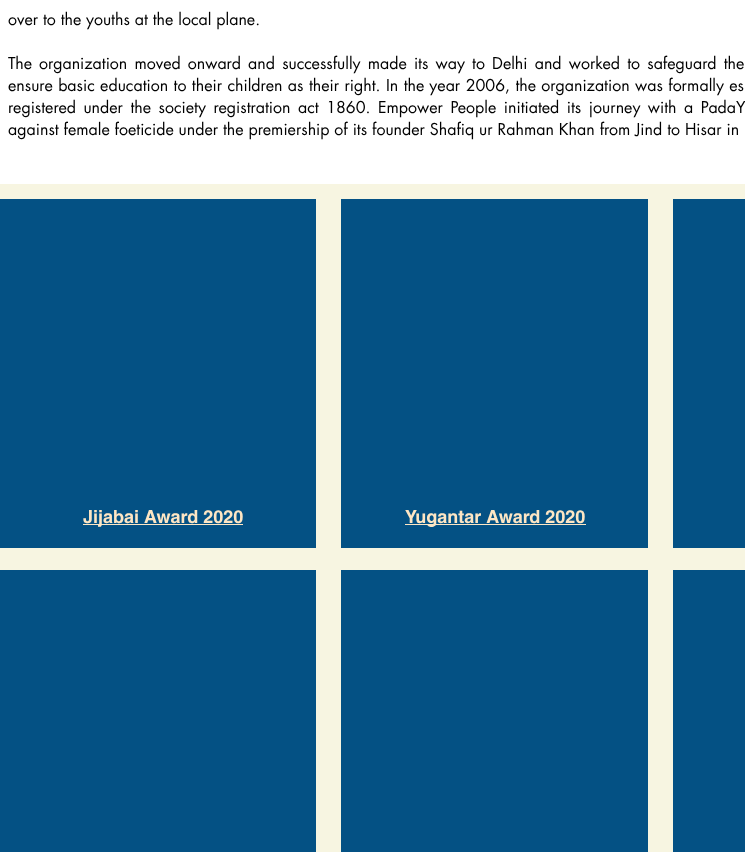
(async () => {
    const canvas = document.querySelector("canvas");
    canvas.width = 745;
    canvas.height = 852;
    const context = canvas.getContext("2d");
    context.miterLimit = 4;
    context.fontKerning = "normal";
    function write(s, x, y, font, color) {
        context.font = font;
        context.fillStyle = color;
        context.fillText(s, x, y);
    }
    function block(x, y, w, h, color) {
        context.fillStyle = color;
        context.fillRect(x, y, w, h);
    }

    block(0, 0, 745, 852, "rgb(255, 255, 255)");
    write("over to the youths at the local plane.", 8, 25, "16px futura", "rgb(0, 0, 0)");
    context.wordSpacing = "2.25px";
    write("The organization moved onward and successfully made its way to Delhi and worked to safeguard the", 8, 69, "16px futura", "rgb(0, 0, 0)");
    context.wordSpacing = "0.5px";
    write("ensure basic education to their children as their right. In the year 2006, the organization was formally es", 8, 91, "16px futura", "rgb(0, 0, 0)");
    context.wordSpacing = "2.6px";
    write("registered under the society registration act 1860. Empower People initiated its journey with a PadaY", 8, 113, "16px futura", "rgb(0, 0, 0)");
    context.wordSpacing = "0px";
    write("against female foeticide under the premiership of its founder Shafiq ur Rahman Khan from Jind to Hisar in", 8, 135, "16px futura", "rgb(0, 0, 0)");
    block(0, 184, 745, 668, "rgb(247, 245, 225)");
    block(0, 199, 316, 349, "rgb(4, 81, 132)");
    block(83, 524, 160, 1, "rgb(254, 230, 196)");
    write("Jijabai Award 2020", 83, 523, "bold 18px helvetica", "rgb(254, 230, 196)");
    block(341, 199, 307, 349, "rgb(4, 81, 132)");
    block(405, 524, 181, 1, "rgb(254, 230, 196)");
    write("Yugantar Award 2020", 405, 523, "bold 18px helvetica", "rgb(254, 230, 196)");
    block(673, 199, 72, 349, "rgb(4, 81, 132)");
    block(0, 570, 316, 282, "rgb(4, 81, 132)");
    block(341, 570, 307, 282, "rgb(4, 81, 132)");
    block(673, 570, 72, 282, "rgb(4, 81, 132)");
})();
